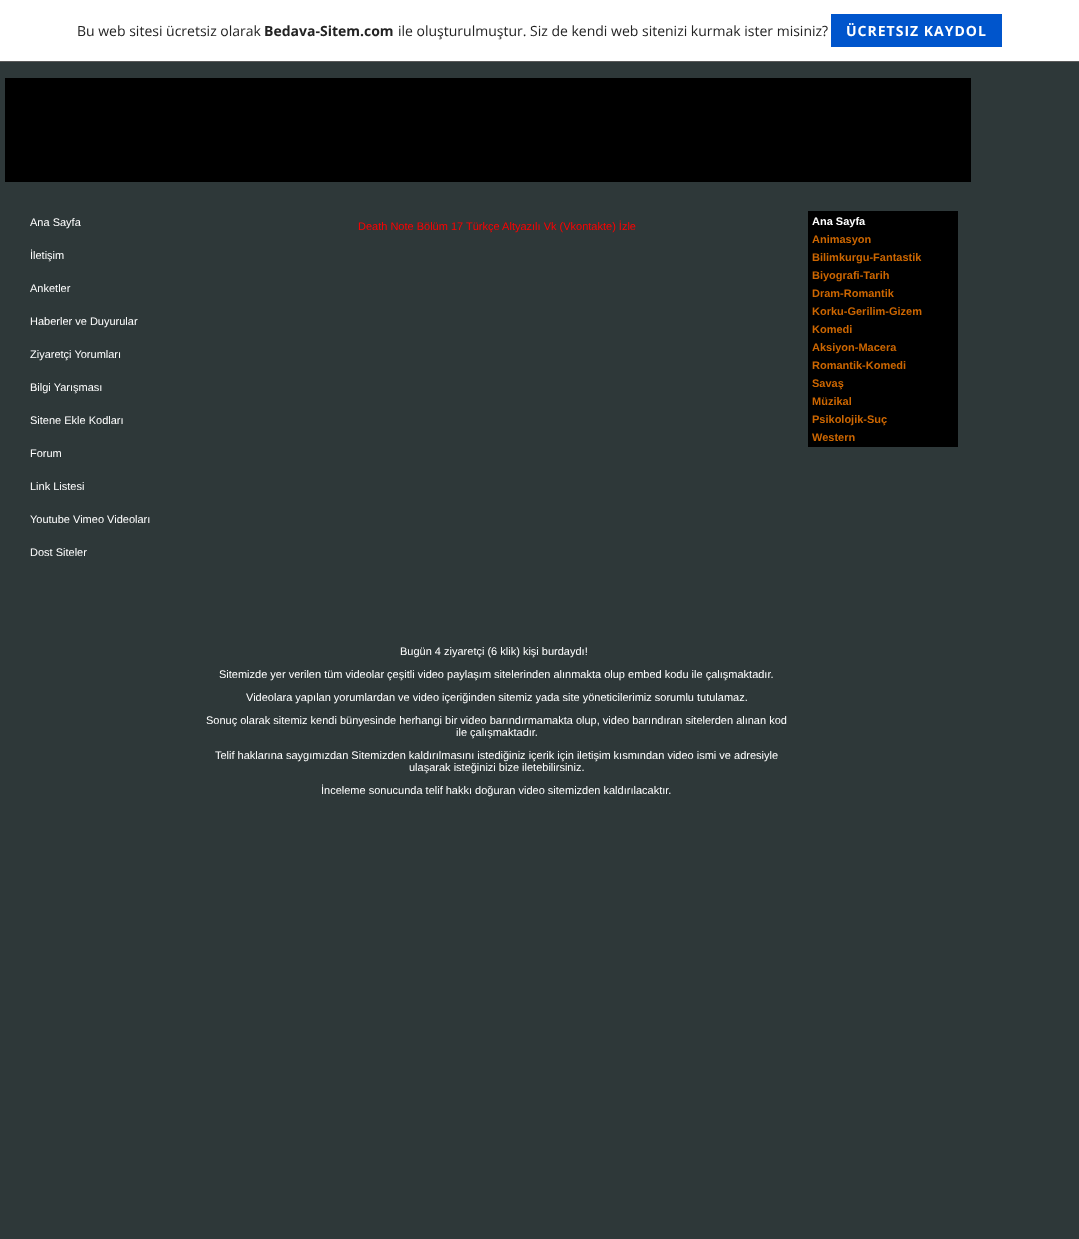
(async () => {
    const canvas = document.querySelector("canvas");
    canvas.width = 1079;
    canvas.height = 1239;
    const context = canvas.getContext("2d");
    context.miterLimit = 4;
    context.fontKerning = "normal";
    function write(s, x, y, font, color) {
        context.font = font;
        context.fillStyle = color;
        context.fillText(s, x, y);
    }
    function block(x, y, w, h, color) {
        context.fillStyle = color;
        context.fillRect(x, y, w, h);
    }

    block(0, 0, 1079, 1239, "rgb(46, 56, 57)");
    block(0, 0, 1079, 61, "rgb(255, 255, 255)");
    block(0, 61, 1079, 1, "rgb(90, 90, 90)");
    write("Bu web sitesi ücretsiz olarak", 77, 36, "14px Open Sans", "rgb(35, 35, 35)");
    write("Bedava-Sitem.com", 264, 36, "bold 14px Open Sans", "rgb(35, 35, 35)");
    write("ile oluşturulmuştur. Siz de kendi web sitenizi kurmak ister misiniz?", 398, 36, "14px Open Sans", "rgb(35, 35, 35)");
    block(831, 14, 171, 33, "rgb(0, 85, 204)");
    context.letterSpacing = "1px";
    write("ÜCRETSIZ KAYDOL", 846, 36, "bold 14px Open Sans", "rgb(255, 255, 255)");
    block(5, 78, 966, 104, "rgb(0, 0, 0)");
    context.letterSpacing = "0px";
    write("Ana Sayfa", 30, 226, "11px Liberation Sans", "rgb(255, 255, 255)");
    write("İletişim", 30, 259, "11px Liberation Sans", "rgb(255, 255, 255)");
    write("Anketler", 30, 292, "11px Liberation Sans", "rgb(255, 255, 255)");
    write("Haberler ve Duyurular", 30, 325, "11px Liberation Sans", "rgb(255, 255, 255)");
    write("Ziyaretçi Yorumları", 30, 358, "11px Liberation Sans", "rgb(255, 255, 255)");
    write("Bilgi Yarışması", 30, 391, "11px Liberation Sans", "rgb(255, 255, 255)");
    write("Sitene Ekle Kodları", 30, 424, "11px Liberation Sans", "rgb(255, 255, 255)");
    write("Forum", 30, 457, "11px Liberation Sans", "rgb(255, 255, 255)");
    write("Link Listesi", 30, 490, "11px Liberation Sans", "rgb(255, 255, 255)");
    write("Youtube Vimeo Videoları", 30, 523, "11px Liberation Sans", "rgb(255, 255, 255)");
    write("Dost Siteler", 30, 556, "11px Liberation Sans", "rgb(255, 255, 255)");
    write("Death Note Bölüm 17 Türkçe Altyazılı Vk (Vkontakte) İzle", 358, 230, "11px Liberation Sans", "rgb(255, 0, 0)");
    write("Bugün 4 ziyaretçi (6 klik) kişi burdaydı!", 400, 655, "11px Liberation Sans", "rgb(255, 255, 255)");
    write("Sitemizde yer verilen tüm videolar çeşitli video paylaşım sitelerinden alınmakta olup embed kodu ile çalışmaktadır.", 219, 678, "11px Liberation Sans", "rgb(255, 255, 255)");
    write("Videolara yapılan yorumlardan ve video içeriğinden sitemiz yada site yöneticilerimiz sorumlu tutulamaz.", 246, 701, "11px Liberation Sans", "rgb(255, 255, 255)");
    write("Sonuç olarak sitemiz kendi bünyesinde herhangi bir video barındırmamakta olup, video barındıran sitelerden alınan kod", 206, 724, "11px Liberation Sans", "rgb(255, 255, 255)");
    write("ile çalışmaktadır.", 456, 736, "11px Liberation Sans", "rgb(255, 255, 255)");
    write("Telif haklarına saygımızdan Sitemizden kaldırılmasını istediğiniz içerik için iletişim kısmından video ismi ve adresiyle", 215, 759, "11px Liberation Sans", "rgb(255, 255, 255)");
    write("ulaşarak isteğinizi bize iletebilirsiniz.", 409, 771, "11px Liberation Sans", "rgb(255, 255, 255)");
    write("İnceleme sonucunda telif hakkı doğuran video sitemizden kaldırılacaktır.", 321, 794, "11px Liberation Sans", "rgb(255, 255, 255)");
    block(808, 211, 150, 236, "rgb(0, 0, 0)");
    write("Ana Sayfa", 812, 225, "bold 11px Liberation Sans", "rgb(255, 255, 255)");
    write("Animasyon", 812, 243, "bold 11px Liberation Sans", "rgb(204, 102, 0)");
    write("Bilimkurgu-Fantastik", 812, 261, "bold 11px Liberation Sans", "rgb(204, 102, 0)");
    write("Biyografi-Tarih", 812, 279, "bold 11px Liberation Sans", "rgb(204, 102, 0)");
    write("Dram-Romantik", 812, 297, "bold 11px Liberation Sans", "rgb(204, 102, 0)");
    write("Korku-Gerilim-Gizem", 812, 315, "bold 11px Liberation Sans", "rgb(204, 102, 0)");
    write("Komedi", 812, 333, "bold 11px Liberation Sans", "rgb(204, 102, 0)");
    write("Aksiyon-Macera", 812, 351, "bold 11px Liberation Sans", "rgb(204, 102, 0)");
    write("Romantik-Komedi", 812, 369, "bold 11px Liberation Sans", "rgb(204, 102, 0)");
    write("Savaş", 812, 387, "bold 11px Liberation Sans", "rgb(204, 102, 0)");
    write("Müzikal", 812, 405, "bold 11px Liberation Sans", "rgb(204, 102, 0)");
    write("Psikolojik-Suç", 812, 423, "bold 11px Liberation Sans", "rgb(204, 102, 0)");
    write("Western", 812, 441, "bold 11px Liberation Sans", "rgb(204, 102, 0)");
})();
